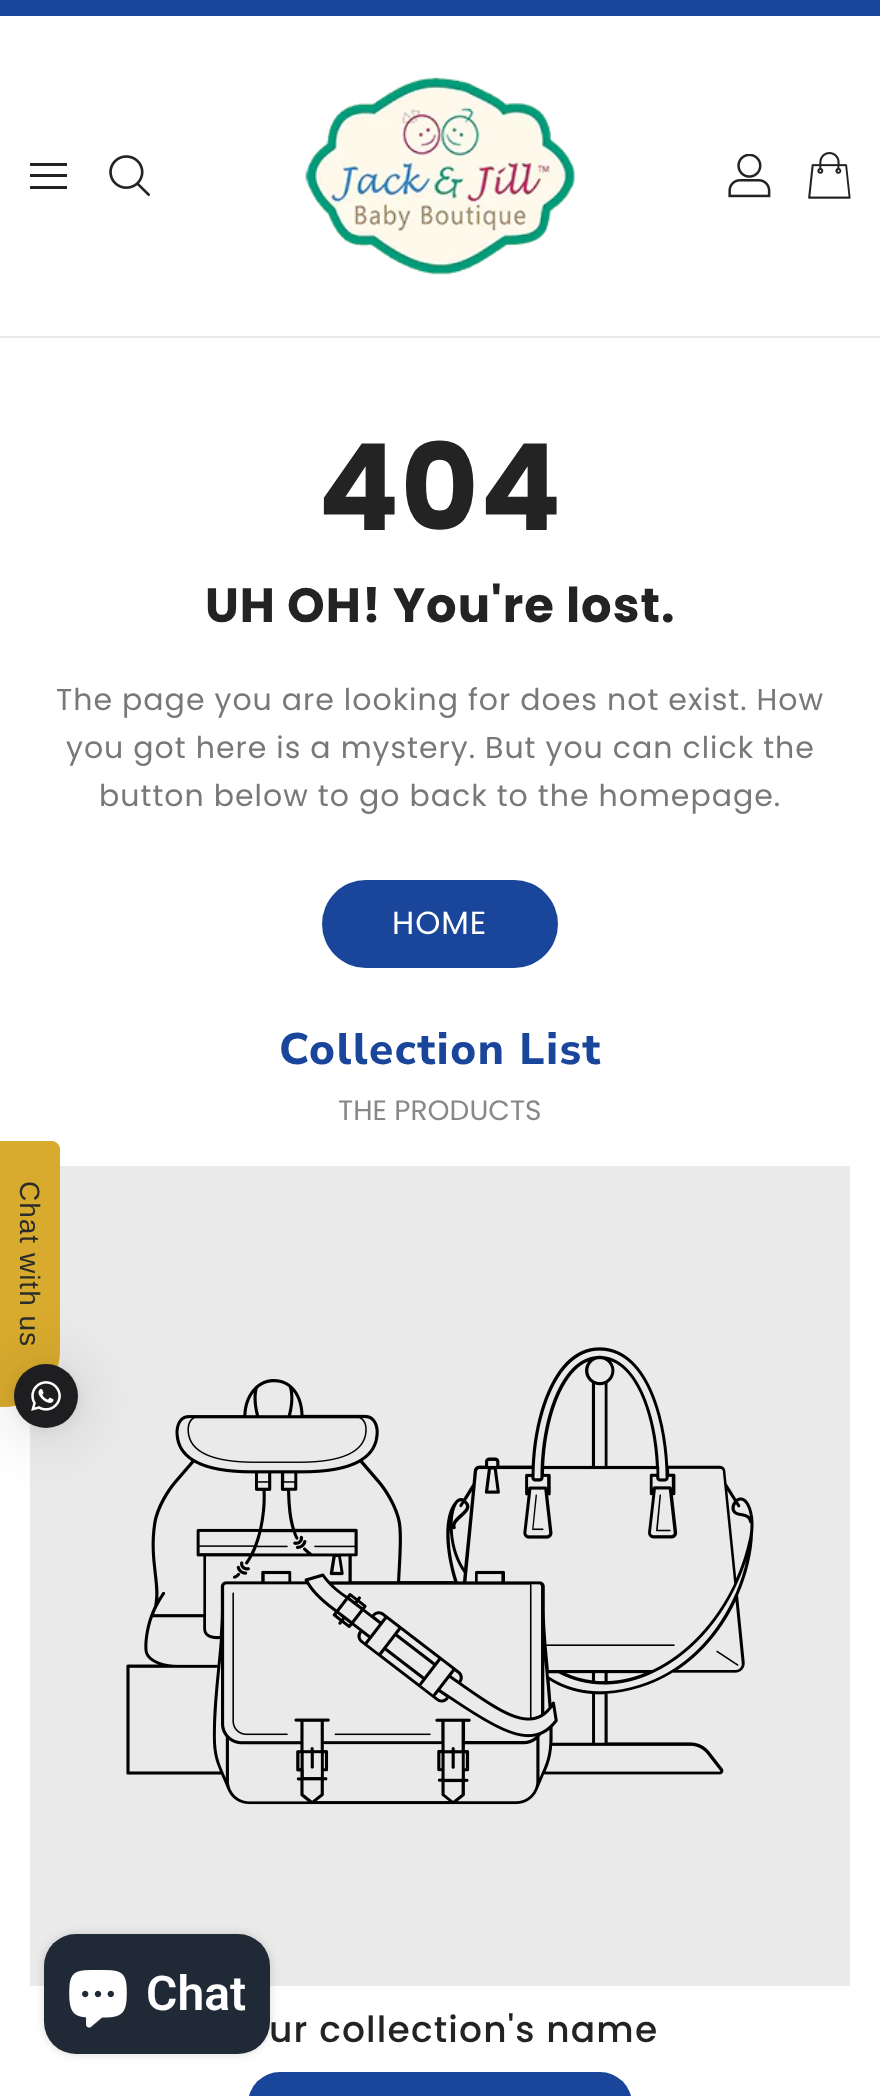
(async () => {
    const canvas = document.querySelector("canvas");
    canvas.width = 880;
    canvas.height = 2096;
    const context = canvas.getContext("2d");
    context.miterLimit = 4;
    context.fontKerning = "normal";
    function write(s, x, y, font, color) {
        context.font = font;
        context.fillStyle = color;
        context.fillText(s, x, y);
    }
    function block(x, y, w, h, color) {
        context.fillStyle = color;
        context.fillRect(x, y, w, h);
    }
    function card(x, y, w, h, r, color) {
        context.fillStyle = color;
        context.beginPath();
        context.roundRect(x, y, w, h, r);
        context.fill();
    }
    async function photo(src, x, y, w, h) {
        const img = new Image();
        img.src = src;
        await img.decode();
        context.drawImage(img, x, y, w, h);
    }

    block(0, 0, 880, 2096, "rgb(255, 255, 255)");
    block(0, 0, 880, 16, "rgb(25, 70, 155)");
    block(0, 336, 880, 2, "rgb(233, 233, 233)");
    block(30, 163, 37, 3, "rgb(35, 35, 35)");
    block(30, 174, 37, 3, "rgb(35, 35, 35)");
    block(30, 186, 37, 3, "rgb(35, 35, 35)");
    await photo("media/1.png", 109, 155, 41, 41);
    await photo("media/2.png", 305, 77, 270, 198);
    await photo("media/3.png", 728, 154, 43, 44);
    await photo("media/4.png", 808, 152, 43, 47);
    block(30, 1166, 820, 820, "rgb(234, 234, 234)");
    context.fillStyle = "rgb(216, 171, 46)";
    context.beginPath();
    context.moveTo(0, 1407);
    context.lineTo(0, 1141);
    context.lineTo(52, 1141);
    context.bezierCurveTo(56, 1141, 60, 1145, 60, 1149);
    context.lineTo(60, 1351);
    context.bezierCurveTo(60, 1382, 35, 1407, 4, 1407);
    context.closePath();
    context.fill();
    context.letterSpacing = "1px";
    context.font = "28px Liberation Sans";
    context.fillStyle = "rgb(42, 44, 43)";
    context.save();
    context.translate(20, 1181);
    context.rotate(90 * Math.PI / 180);
    context.fillText("Chat with us", 0, 0);
    context.restore();
    await photo("media/6.png", 126, 1347, 628, 458);
    context.fillStyle = "rgba(0, 0, 0, 0.16)";
    context.filter = "blur(32px)";
    context.beginPath();
    context.roundRect(14, 1368, 64, 64, 32);
    context.fill();
    context.filter = "none";
    context.fillStyle = "rgba(0, 0, 0, 0.06)";
    context.filter = "blur(6px)";
    context.beginPath();
    context.roundRect(14, 1366, 64, 64, 32);
    context.fill();
    context.filter = "none";
    context.fillStyle = "rgb(30, 30, 32)";
    context.beginPath();
    context.arc(46, 1396, 32, 0, Math.PI * 2);
    context.fill();
    await photo("media/5.png", 31, 1381, 30, 30);
    context.letterSpacing = "1.2px";
    write("404", 318, 530, "bold 120px Poppins", "rgb(35, 35, 35)");
    context.letterSpacing = "1px";
    write("UH OH! You're lost.", 205, 622, "bold 48px Poppins", "rgb(35, 35, 35)");
    write("The page you are looking for does not exist. How", 56, 710, "30px Poppins", "rgb(120, 120, 120)");
    write("you got here is a mystery. But you can click the", 66, 758, "30px Poppins", "rgb(120, 120, 120)");
    write("button below to go back to the homepage.", 99, 806, "30px Poppins", "rgb(120, 120, 120)");
    card(322, 880, 236, 88, 44, "rgb(25, 70, 155)");
    write("HOME", 392, 934, "32px Poppins", "rgb(255, 255, 255)");
    context.letterSpacing = "1.6px";
    write("Collection List", 279, 1064, "800 44px Nunito Sans", "rgb(25, 70, 155)");
    context.letterSpacing = "0px";
    write("THE PRODUCTS", 338, 1120, "28px Poppins", "rgb(136, 136, 136)");
    context.letterSpacing = "1.2px";
    write("ur collection's name", 269, 2042, "500 36px Poppins", "rgb(35, 35, 35)");
    card(248, 2072, 384, 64, 40, "rgb(25, 70, 155)");
    context.fillStyle = "rgba(0, 0, 0, 0.15)";
    context.filter = "blur(5px)";
    context.beginPath();
    context.roundRect(44, 1934, 226, 120, 32);
    context.fill();
    context.filter = "none";
    card(44, 1934, 226, 120, 32, "rgb(32, 42, 54)");
    await photo("media/7.png", 69, 1970, 58, 58);
    context.letterSpacing = "0px";
    write("Chat", 146, 2010, "600 48px Roboto", "rgb(255, 255, 255)");
})();
